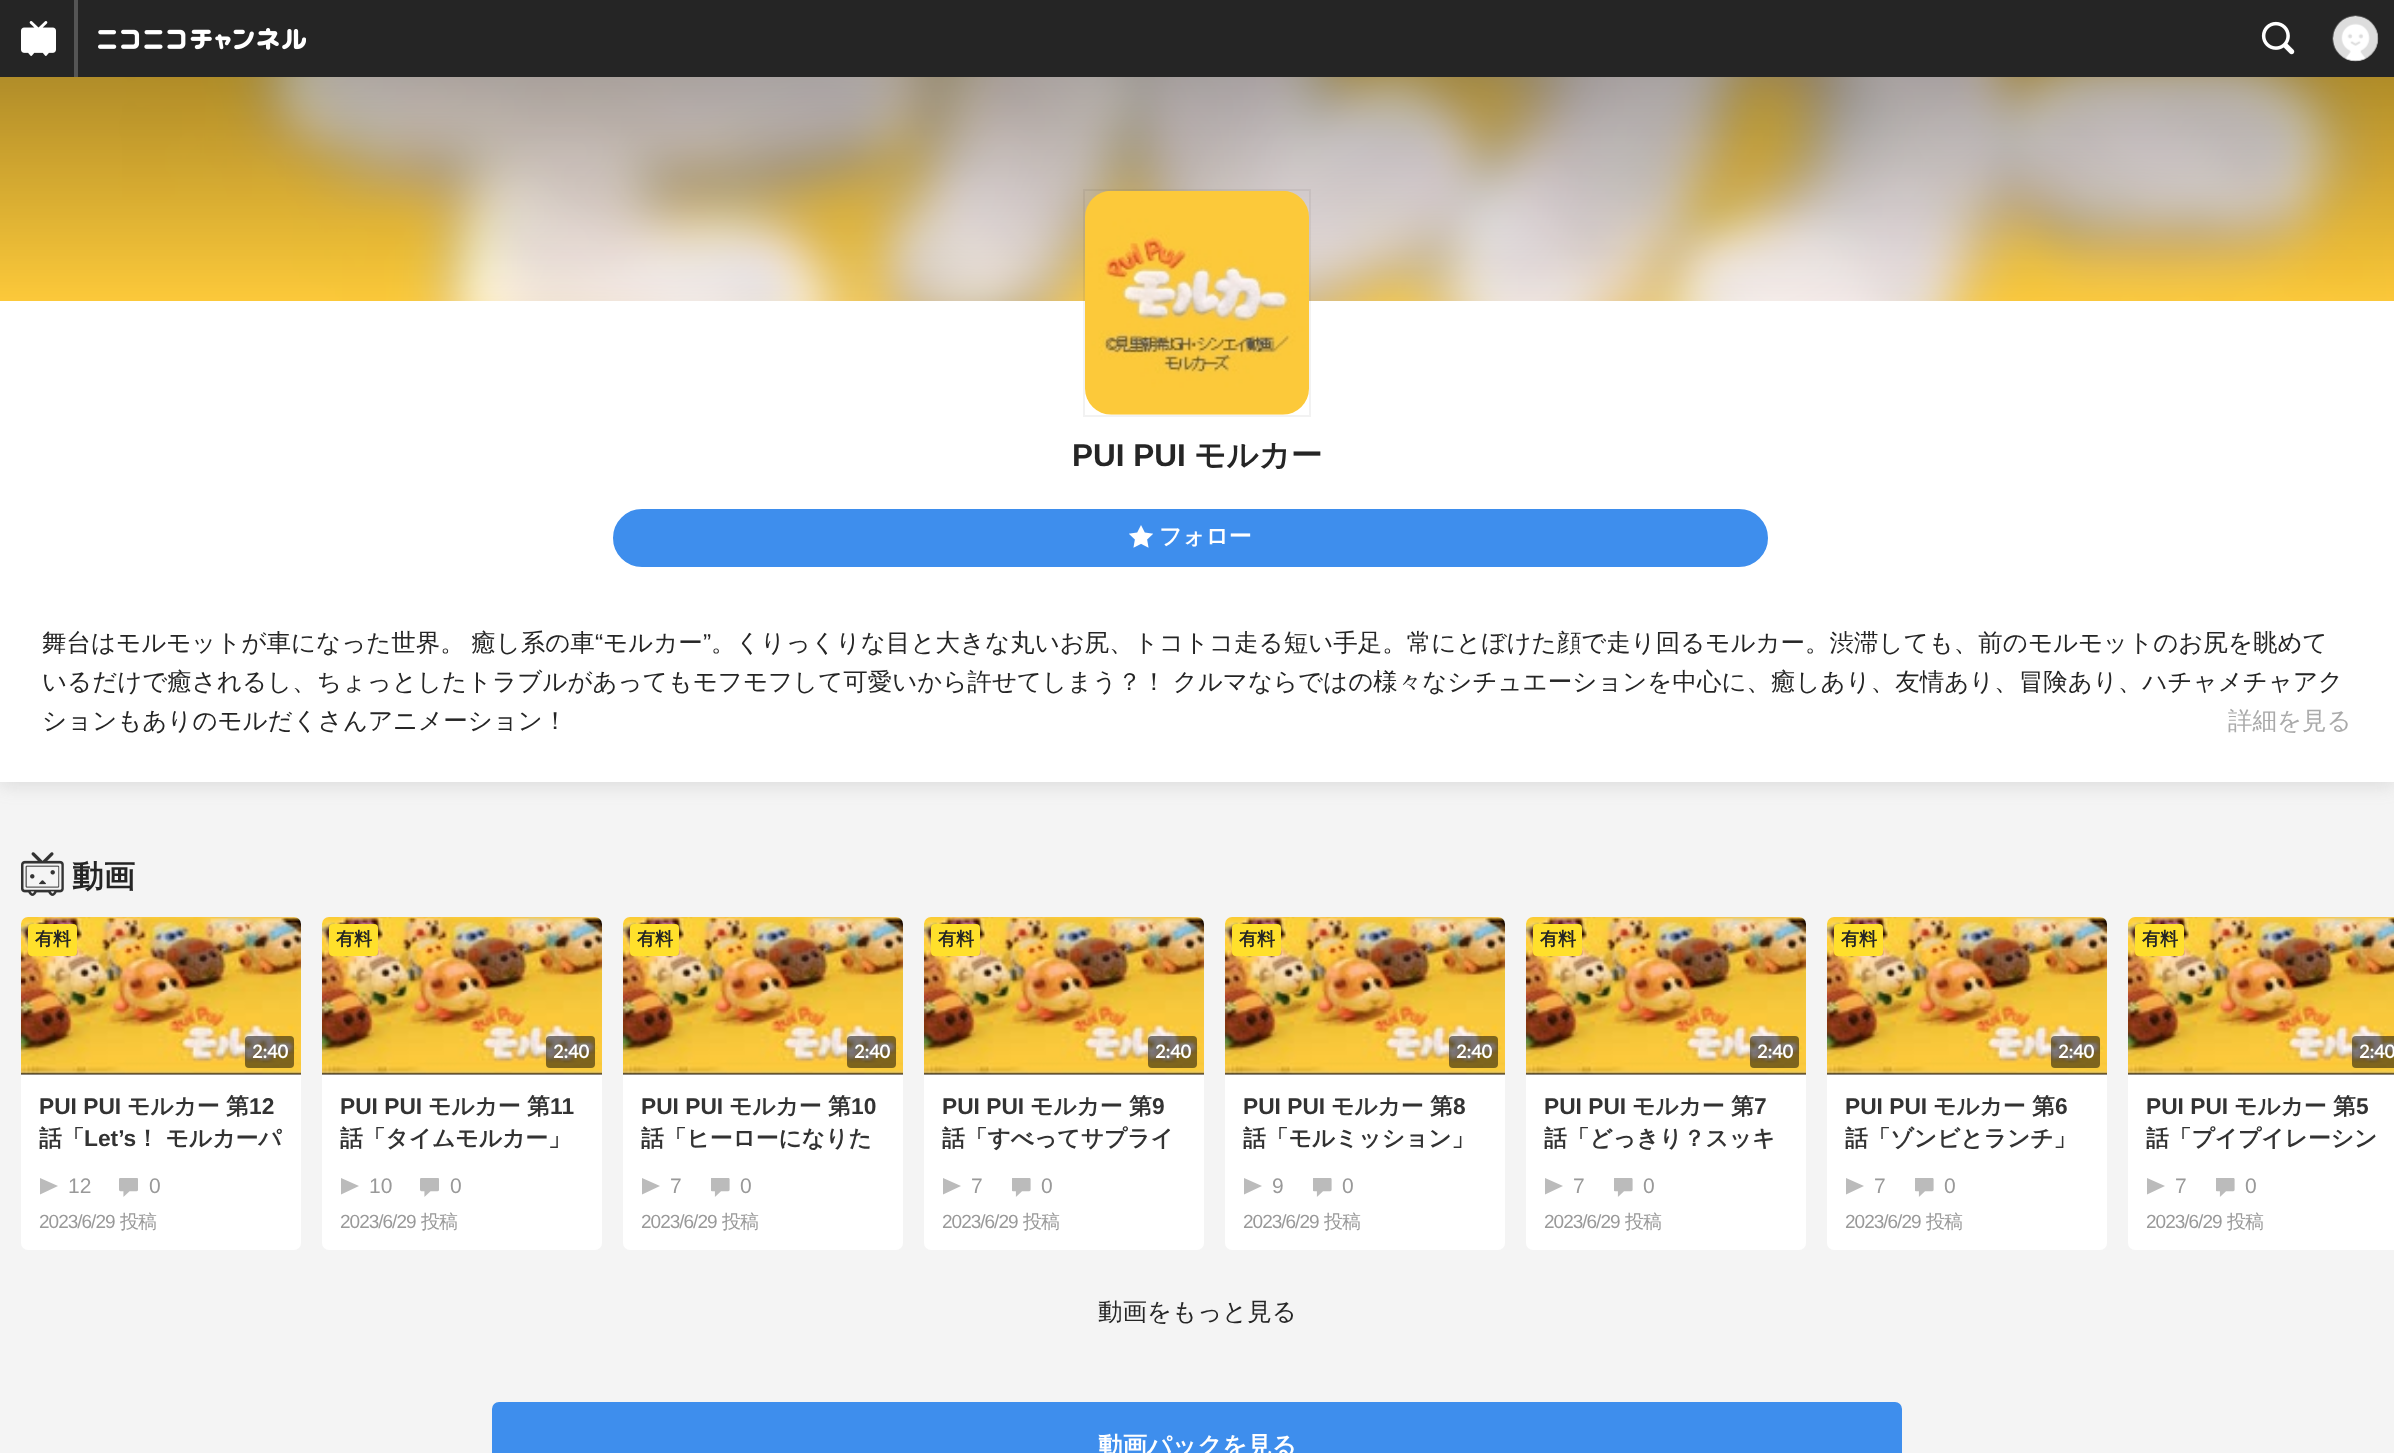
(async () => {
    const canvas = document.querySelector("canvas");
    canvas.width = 2394;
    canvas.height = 1453;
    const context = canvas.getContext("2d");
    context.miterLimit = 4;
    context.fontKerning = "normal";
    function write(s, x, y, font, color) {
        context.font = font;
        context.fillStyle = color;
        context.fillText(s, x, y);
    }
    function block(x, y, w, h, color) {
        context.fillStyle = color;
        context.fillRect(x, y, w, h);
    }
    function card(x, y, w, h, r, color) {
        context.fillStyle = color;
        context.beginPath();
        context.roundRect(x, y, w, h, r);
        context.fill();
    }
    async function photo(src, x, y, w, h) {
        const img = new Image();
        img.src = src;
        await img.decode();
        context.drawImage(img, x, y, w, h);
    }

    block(0, 0, 2394, 1453, "rgb(244, 244, 244)");
    context.fillStyle = "rgba(125, 125, 125, 0.2)";
    context.filter = "blur(9px)";
    context.beginPath();
    context.rect(0, 81, 2394, 705);
    context.fill();
    context.filter = "none";
    block(0, 0, 2394, 77, "rgb(37, 37, 37)");
    await photo("media/1.png", 21, 21, 35, 35);
    block(74, 0, 4, 77, "rgb(85, 85, 85)");
    await photo("media/2.png", 98, 28, 208, 22);
    await photo("media/3.png", 2261, 21, 34, 34);
    await photo("media/4.png", 2332, 15, 47, 47);
    block(0, 301, 2394, 481, "rgb(255, 255, 255)");
    await photo("media/5.png", 0, 77, 2394, 224);
    context.strokeStyle = "rgba(0, 0, 0, 0.05)";
    context.lineWidth = 2;
    context.strokeRect(1084, 190, 226, 226);
    await photo("media/6.png", 1085, 190, 224, 225);
    write("PUI PUI", 1072, 466, "bold 31.5px Liberation Sans", "rgb(37, 37, 37)");
    write("モルカー", 1194, 466, "bold 31.5px WenQuanYi Zen Hei", "rgb(37, 37, 37)");
    context.fillStyle = "rgb(62, 142, 237)";
    context.beginPath();
    context.roundRect(615, 511, 1151, 54, 27);
    context.fill();
    context.strokeStyle = "rgb(62, 142, 237)";
    context.lineWidth = 4;
    context.stroke();
    await photo("media/7.png", 1129, 525, 24, 23);
    write("フォロー", 1159, 544, "bold 22.75px WenQuanYi Zen Hei", "rgb(255, 255, 255)");
    context.wordSpacing = "-1px";
    write("舞台はモルモットが車になった世界。 癒し系の車", 42, 651, "500 24.5px WenQuanYi Zen Hei", "rgb(37, 37, 37)");
    context.wordSpacing = "0px";
    write("“", 595, 651, "24.5px Liberation Sans", "rgb(37, 37, 37)");
    write("モルカー", 603, 651, "500 24.5px WenQuanYi Zen Hei", "rgb(37, 37, 37)");
    write("”", 703, 651, "24.5px Liberation Sans", "rgb(37, 37, 37)");
    write("。くりっくりな目と大きな丸いお尻、トコトコ走る短い手足。常にとぼけた顔で走り回るモルカー。渋滞しても、前のモルモットのお尻を眺めて", 711, 651, "500 24.5px WenQuanYi Zen Hei", "rgb(37, 37, 37)");
    context.wordSpacing = "-1px";
    write("いるだけで癒されるし、ちょっとしたトラブルがあってもモフモフして可愛いから許せてしまう？！ クルマならではの様々なシチュエーションを中心に、癒しあり、友情あり、冒険あり、ハチャメチャアク", 42, 690, "500 24.5px WenQuanYi Zen Hei", "rgb(37, 37, 37)");
    context.wordSpacing = "0px";
    write("ションもありのモルだくさんアニメーション！", 42, 729, "500 24.5px WenQuanYi Zen Hei", "rgb(37, 37, 37)");
    write("詳細を見る", 2228, 729, "500 24.5px WenQuanYi Zen Hei", "rgb(170, 170, 170)");
    await photo("media/8.png", 21, 852, 43, 44);
    write("動画", 72, 887, "bold 31.5px WenQuanYi Zen Hei", "rgb(37, 37, 37)");
    card(21, 917, 280, 333, 7, "rgb(255, 255, 255)");
    await photo("media/9.png", 21, 917, 280, 158);
    card(28, 924, 49, 32, 4, "rgb(255, 224, 43)");
    write("有料", 35, 945, "bold 18px WenQuanYi Zen Hei", "rgb(37, 37, 37)");
    card(245, 1036, 49, 32, 4, "rgba(0, 0, 0, 0.5)");
    write("2:40", 252, 1058, "bold 18px Lato", "rgb(255, 255, 255)");
    write("PUI PUI", 39, 1114, "bold 22.75px Liberation Sans", "rgb(51, 51, 51)");
    write("モルカー", 127, 1114, "bold 22.75px WenQuanYi Zen Hei", "rgb(51, 51, 51)");
    write("第", 226, 1114, "bold 22.75px WenQuanYi Zen Hei", "rgb(51, 51, 51)");
    write("12", 249, 1114, "bold 22.75px Liberation Sans", "rgb(51, 51, 51)");
    write("話「", 39, 1146, "bold 22.75px WenQuanYi Zen Hei", "rgb(51, 51, 51)");
    write("Let’s", 84, 1146, "bold 22.75px Liberation Sans", "rgb(51, 51, 51)");
    write("！ モルカーパ", 136, 1146, "bold 22.75px WenQuanYi Zen Hei", "rgb(51, 51, 51)");
    context.fillStyle = "rgb(187, 187, 187)";
    context.beginPath();
    context.moveTo(40, 1178);
    context.lineTo(40, 1194.5);
    context.lineTo(58, 1186);
    context.closePath();
    context.fill("evenodd");
    write("12", 68, 1193, "21px Liberation Sans", "rgb(153, 153, 153)");
    await photo("media/10.png", 119, 1178, 19, 19);
    write("0", 149, 1193, "21px Liberation Sans", "rgb(153, 153, 153)");
    context.letterSpacing = "-1px";
    write("2023/6/29", 39, 1228, "19px Liberation Sans", "rgb(153, 153, 153)");
    write("投稿", 120, 1228, "500 19px WenQuanYi Zen Hei", "rgb(153, 153, 153)");
    card(322, 917, 280, 333, 7, "rgb(255, 255, 255)");
    await photo("media/11.png", 322, 917, 280, 158);
    card(329, 924, 49, 32, 4, "rgb(255, 224, 43)");
    context.letterSpacing = "0px";
    write("有料", 336, 945, "bold 18px WenQuanYi Zen Hei", "rgb(37, 37, 37)");
    card(546, 1036, 49, 32, 4, "rgba(0, 0, 0, 0.5)");
    write("2:40", 553, 1058, "bold 18px Lato", "rgb(255, 255, 255)");
    write("PUI PUI", 340, 1114, "bold 22.75px Liberation Sans", "rgb(51, 51, 51)");
    write("モルカー", 428, 1114, "bold 22.75px WenQuanYi Zen Hei", "rgb(51, 51, 51)");
    write("第", 527, 1114, "bold 22.75px WenQuanYi Zen Hei", "rgb(51, 51, 51)");
    write("11", 550, 1114, "bold 22.75px Liberation Sans", "rgb(51, 51, 51)");
    write("話「タイムモルカー」", 340, 1146, "bold 22.75px WenQuanYi Zen Hei", "rgb(51, 51, 51)");
    context.fillStyle = "rgb(187, 187, 187)";
    context.beginPath();
    context.moveTo(341, 1178);
    context.lineTo(341, 1194.5);
    context.lineTo(359, 1186);
    context.closePath();
    context.fill("evenodd");
    write("10", 369, 1193, "21px Liberation Sans", "rgb(153, 153, 153)");
    await photo("media/10.png", 420, 1178, 19, 19);
    write("0", 450, 1193, "21px Liberation Sans", "rgb(153, 153, 153)");
    context.letterSpacing = "-1px";
    write("2023/6/29", 340, 1228, "19px Liberation Sans", "rgb(153, 153, 153)");
    write("投稿", 421, 1228, "500 19px WenQuanYi Zen Hei", "rgb(153, 153, 153)");
    card(623, 917, 280, 333, 7, "rgb(255, 255, 255)");
    await photo("media/12.png", 623, 917, 280, 158);
    card(630, 924, 49, 32, 4, "rgb(255, 224, 43)");
    context.letterSpacing = "0px";
    write("有料", 637, 945, "bold 18px WenQuanYi Zen Hei", "rgb(37, 37, 37)");
    card(847, 1036, 49, 32, 4, "rgba(0, 0, 0, 0.5)");
    write("2:40", 854, 1058, "bold 18px Lato", "rgb(255, 255, 255)");
    write("PUI PUI", 641, 1114, "bold 22.75px Liberation Sans", "rgb(51, 51, 51)");
    write("モルカー", 729, 1114, "bold 22.75px WenQuanYi Zen Hei", "rgb(51, 51, 51)");
    write("第", 828, 1114, "bold 22.75px WenQuanYi Zen Hei", "rgb(51, 51, 51)");
    write("10", 851, 1114, "bold 22.75px Liberation Sans", "rgb(51, 51, 51)");
    write("話「ヒーローになりた", 641, 1146, "bold 22.75px WenQuanYi Zen Hei", "rgb(51, 51, 51)");
    context.fillStyle = "rgb(187, 187, 187)";
    context.beginPath();
    context.moveTo(642, 1178);
    context.lineTo(642, 1194.5);
    context.lineTo(660, 1186);
    context.closePath();
    context.fill("evenodd");
    write("7", 670, 1193, "21px Liberation Sans", "rgb(153, 153, 153)");
    await photo("media/13.png", 711, 1178, 19, 19);
    write("0", 740, 1193, "21px Liberation Sans", "rgb(153, 153, 153)");
    context.letterSpacing = "-1px";
    write("2023/6/29", 641, 1228, "19px Liberation Sans", "rgb(153, 153, 153)");
    write("投稿", 722, 1228, "500 19px WenQuanYi Zen Hei", "rgb(153, 153, 153)");
    card(924, 917, 280, 333, 7, "rgb(255, 255, 255)");
    await photo("media/14.png", 924, 917, 280, 158);
    card(931, 924, 49, 32, 4, "rgb(255, 224, 43)");
    context.letterSpacing = "0px";
    write("有料", 938, 945, "bold 18px WenQuanYi Zen Hei", "rgb(37, 37, 37)");
    card(1148, 1036, 49, 32, 4, "rgba(0, 0, 0, 0.5)");
    write("2:40", 1155, 1058, "bold 18px Lato", "rgb(255, 255, 255)");
    write("PUI PUI", 942, 1114, "bold 22.75px Liberation Sans", "rgb(51, 51, 51)");
    write("モルカー", 1030, 1114, "bold 22.75px WenQuanYi Zen Hei", "rgb(51, 51, 51)");
    write("第", 1129, 1114, "bold 22.75px WenQuanYi Zen Hei", "rgb(51, 51, 51)");
    write("9", 1152, 1114, "bold 22.75px Liberation Sans", "rgb(51, 51, 51)");
    write("話「すべってサプライ", 942, 1146, "bold 22.75px WenQuanYi Zen Hei", "rgb(51, 51, 51)");
    context.fillStyle = "rgb(187, 187, 187)";
    context.beginPath();
    context.moveTo(943, 1178);
    context.lineTo(943, 1194.5);
    context.lineTo(961, 1186);
    context.closePath();
    context.fill("evenodd");
    write("7", 971, 1193, "21px Liberation Sans", "rgb(153, 153, 153)");
    await photo("media/13.png", 1012, 1178, 19, 19);
    write("0", 1041, 1193, "21px Liberation Sans", "rgb(153, 153, 153)");
    context.letterSpacing = "-1px";
    write("2023/6/29", 942, 1228, "19px Liberation Sans", "rgb(153, 153, 153)");
    write("投稿", 1023, 1228, "500 19px WenQuanYi Zen Hei", "rgb(153, 153, 153)");
    card(1225, 917, 280, 333, 7, "rgb(255, 255, 255)");
    await photo("media/15.png", 1225, 917, 280, 158);
    card(1232, 924, 49, 32, 4, "rgb(255, 224, 43)");
    context.letterSpacing = "0px";
    write("有料", 1239, 945, "bold 18px WenQuanYi Zen Hei", "rgb(37, 37, 37)");
    card(1449, 1036, 49, 32, 4, "rgba(0, 0, 0, 0.5)");
    write("2:40", 1456, 1058, "bold 18px Lato", "rgb(255, 255, 255)");
    write("PUI PUI", 1243, 1114, "bold 22.75px Liberation Sans", "rgb(51, 51, 51)");
    write("モルカー", 1331, 1114, "bold 22.75px WenQuanYi Zen Hei", "rgb(51, 51, 51)");
    write("第", 1430, 1114, "bold 22.75px WenQuanYi Zen Hei", "rgb(51, 51, 51)");
    write("8", 1453, 1114, "bold 22.75px Liberation Sans", "rgb(51, 51, 51)");
    write("話「モルミッション」", 1243, 1146, "bold 22.75px WenQuanYi Zen Hei", "rgb(51, 51, 51)");
    context.fillStyle = "rgb(187, 187, 187)";
    context.beginPath();
    context.moveTo(1244, 1178);
    context.lineTo(1244, 1194.5);
    context.lineTo(1262, 1186);
    context.closePath();
    context.fill("evenodd");
    write("9", 1272, 1193, "21px Liberation Sans", "rgb(153, 153, 153)");
    await photo("media/13.png", 1313, 1178, 19, 19);
    write("0", 1342, 1193, "21px Liberation Sans", "rgb(153, 153, 153)");
    context.letterSpacing = "-1px";
    write("2023/6/29", 1243, 1228, "19px Liberation Sans", "rgb(153, 153, 153)");
    write("投稿", 1324, 1228, "500 19px WenQuanYi Zen Hei", "rgb(153, 153, 153)");
    card(1526, 917, 280, 333, 7, "rgb(255, 255, 255)");
    await photo("media/16.png", 1526, 917, 280, 158);
    card(1533, 924, 49, 32, 4, "rgb(255, 224, 43)");
    context.letterSpacing = "0px";
    write("有料", 1540, 945, "bold 18px WenQuanYi Zen Hei", "rgb(37, 37, 37)");
    card(1750, 1036, 49, 32, 4, "rgba(0, 0, 0, 0.5)");
    write("2:40", 1757, 1058, "bold 18px Lato", "rgb(255, 255, 255)");
    write("PUI PUI", 1544, 1114, "bold 22.75px Liberation Sans", "rgb(51, 51, 51)");
    write("モルカー", 1632, 1114, "bold 22.75px WenQuanYi Zen Hei", "rgb(51, 51, 51)");
    write("第", 1731, 1114, "bold 22.75px WenQuanYi Zen Hei", "rgb(51, 51, 51)");
    write("7", 1754, 1114, "bold 22.75px Liberation Sans", "rgb(51, 51, 51)");
    write("話「どっきり？スッキ", 1544, 1146, "bold 22.75px WenQuanYi Zen Hei", "rgb(51, 51, 51)");
    context.fillStyle = "rgb(187, 187, 187)";
    context.beginPath();
    context.moveTo(1545, 1178);
    context.lineTo(1545, 1194.5);
    context.lineTo(1563, 1186);
    context.closePath();
    context.fill("evenodd");
    write("7", 1573, 1193, "21px Liberation Sans", "rgb(153, 153, 153)");
    await photo("media/13.png", 1614, 1178, 19, 19);
    write("0", 1643, 1193, "21px Liberation Sans", "rgb(153, 153, 153)");
    context.letterSpacing = "-1px";
    write("2023/6/29", 1544, 1228, "19px Liberation Sans", "rgb(153, 153, 153)");
    write("投稿", 1625, 1228, "500 19px WenQuanYi Zen Hei", "rgb(153, 153, 153)");
    card(1827, 917, 280, 333, 7, "rgb(255, 255, 255)");
    await photo("media/17.png", 1827, 917, 280, 158);
    card(1834, 924, 49, 32, 4, "rgb(255, 224, 43)");
    context.letterSpacing = "0px";
    write("有料", 1841, 945, "bold 18px WenQuanYi Zen Hei", "rgb(37, 37, 37)");
    card(2051, 1036, 49, 32, 4, "rgba(0, 0, 0, 0.5)");
    write("2:40", 2058, 1058, "bold 18px Lato", "rgb(255, 255, 255)");
    write("PUI PUI", 1845, 1114, "bold 22.75px Liberation Sans", "rgb(51, 51, 51)");
    write("モルカー", 1933, 1114, "bold 22.75px WenQuanYi Zen Hei", "rgb(51, 51, 51)");
    write("第", 2032, 1114, "bold 22.75px WenQuanYi Zen Hei", "rgb(51, 51, 51)");
    write("6", 2055, 1114, "bold 22.75px Liberation Sans", "rgb(51, 51, 51)");
    write("話「ゾンビとランチ」", 1845, 1146, "bold 22.75px WenQuanYi Zen Hei", "rgb(51, 51, 51)");
    context.fillStyle = "rgb(187, 187, 187)";
    context.beginPath();
    context.moveTo(1846, 1178);
    context.lineTo(1846, 1194.5);
    context.lineTo(1864, 1186);
    context.closePath();
    context.fill("evenodd");
    write("7", 1874, 1193, "21px Liberation Sans", "rgb(153, 153, 153)");
    await photo("media/13.png", 1915, 1178, 19, 19);
    write("0", 1944, 1193, "21px Liberation Sans", "rgb(153, 153, 153)");
    context.letterSpacing = "-1px";
    write("2023/6/29", 1845, 1228, "19px Liberation Sans", "rgb(153, 153, 153)");
    write("投稿", 1926, 1228, "500 19px WenQuanYi Zen Hei", "rgb(153, 153, 153)");
    context.fillStyle = "rgb(255, 255, 255)";
    context.beginPath();
    context.roundRect(2128, 917, 266, 333, [7, 0, 0, 7]);
    context.fill();
    await photo("media/18.png", 2128, 917, 266, 158);
    card(2135, 924, 49, 32, 4, "rgb(255, 224, 43)");
    context.letterSpacing = "0px";
    write("有料", 2142, 945, "bold 18px WenQuanYi Zen Hei", "rgb(37, 37, 37)");
    context.fillStyle = "rgba(0, 0, 0, 0.5)";
    context.beginPath();
    context.roundRect(2352, 1036, 42, 32, [4, 0, 0, 4]);
    context.fill();
    write("2:40", 2359, 1058, "bold 18px Lato", "rgb(255, 255, 255)");
    write("PUI PUI", 2146, 1114, "bold 22.75px Liberation Sans", "rgb(51, 51, 51)");
    write("モルカー", 2234, 1114, "bold 22.75px WenQuanYi Zen Hei", "rgb(51, 51, 51)");
    write("第", 2333, 1114, "bold 22.75px WenQuanYi Zen Hei", "rgb(51, 51, 51)");
    write("5", 2356, 1114, "bold 22.75px Liberation Sans", "rgb(51, 51, 51)");
    write("話「プイプイレーシン", 2146, 1146, "bold 22.75px WenQuanYi Zen Hei", "rgb(51, 51, 51)");
    context.fillStyle = "rgb(187, 187, 187)";
    context.beginPath();
    context.moveTo(2147, 1178);
    context.lineTo(2147, 1194.5);
    context.lineTo(2165, 1186);
    context.closePath();
    context.fill("evenodd");
    write("7", 2175, 1193, "21px Liberation Sans", "rgb(153, 153, 153)");
    await photo("media/13.png", 2216, 1178, 19, 19);
    write("0", 2245, 1193, "21px Liberation Sans", "rgb(153, 153, 153)");
    context.letterSpacing = "-1px";
    write("2023/6/29", 2146, 1228, "19px Liberation Sans", "rgb(153, 153, 153)");
    write("投稿", 2227, 1228, "500 19px WenQuanYi Zen Hei", "rgb(153, 153, 153)");
    context.letterSpacing = "0px";
    write("動画をもっと見る", 1098, 1320, "500 24.5px WenQuanYi Zen Hei", "rgb(37, 37, 37)");
    context.fillStyle = "rgb(62, 142, 237)";
    context.beginPath();
    context.roundRect(494, 1404, 1406, 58, 5);
    context.fill();
    context.stroke();
    write("動画パックを見る", 1098, 1454, "bold 24.5px WenQuanYi Zen Hei", "rgb(255, 255, 255)");
})();
